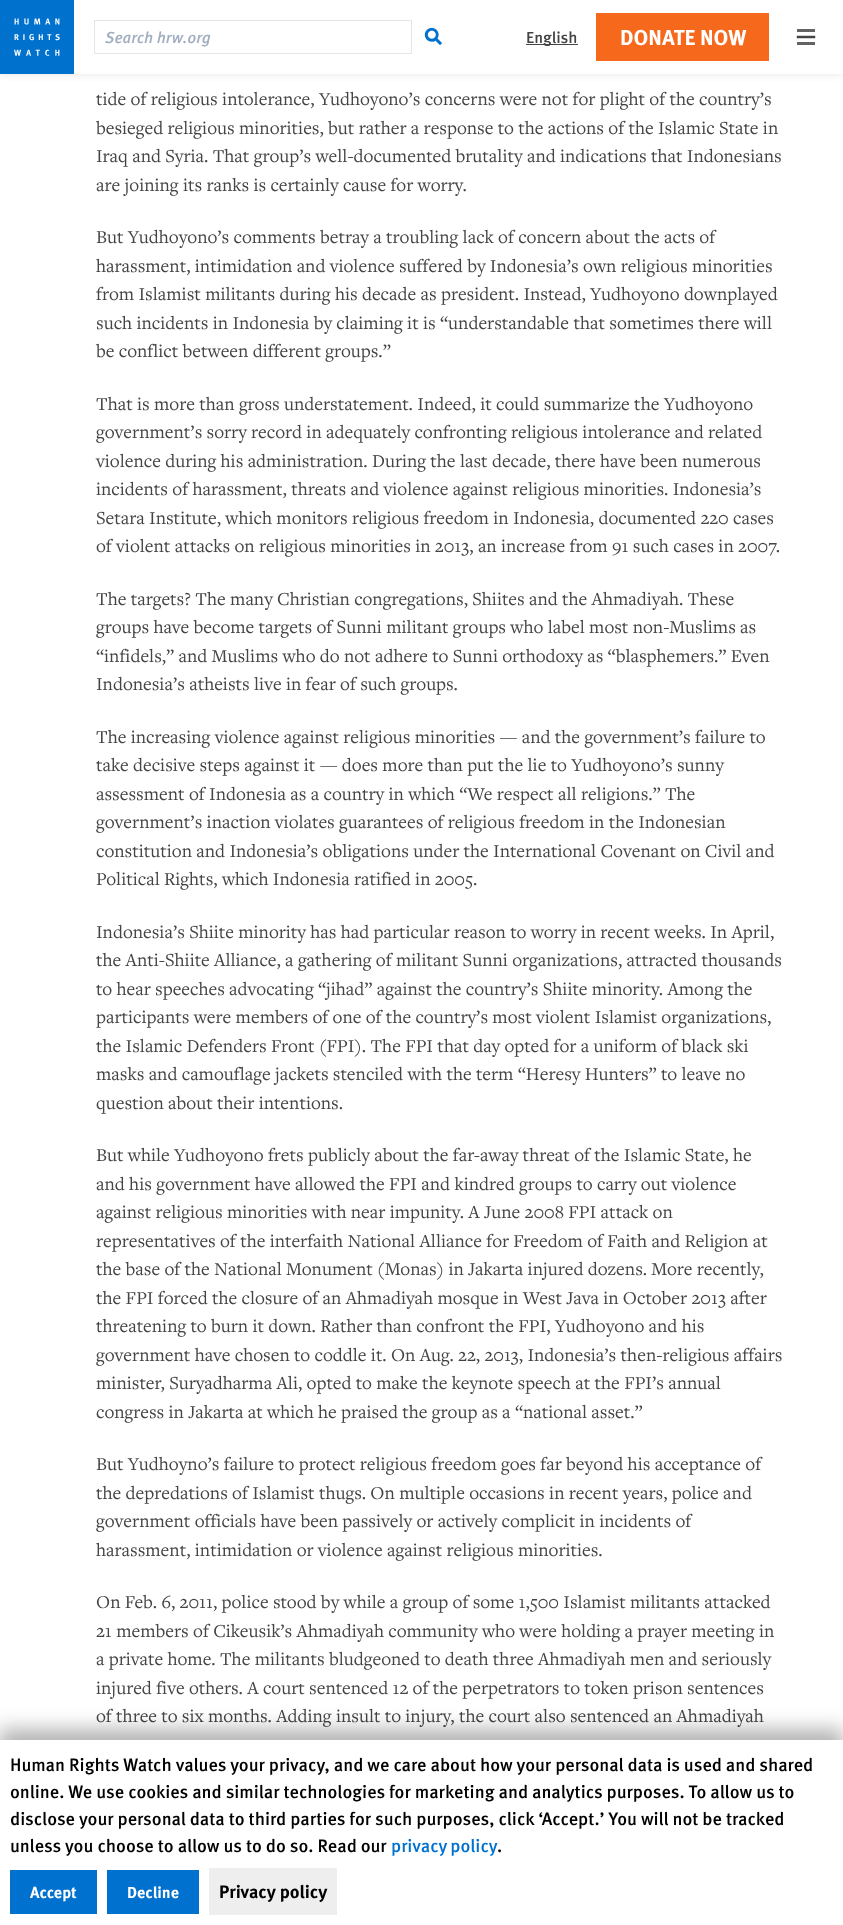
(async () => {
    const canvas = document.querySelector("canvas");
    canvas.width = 843;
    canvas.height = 1925;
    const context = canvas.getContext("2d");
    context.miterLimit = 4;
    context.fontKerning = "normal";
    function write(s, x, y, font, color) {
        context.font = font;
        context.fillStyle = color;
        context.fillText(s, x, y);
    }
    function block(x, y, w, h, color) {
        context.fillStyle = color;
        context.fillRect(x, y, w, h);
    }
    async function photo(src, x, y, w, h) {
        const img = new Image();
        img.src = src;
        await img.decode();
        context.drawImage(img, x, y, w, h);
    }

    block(0, 0, 843, 1925, "rgb(255, 255, 255)");
    context.fillStyle = "rgba(0, 0, 0, 0.1)";
    context.filter = "blur(4px)";
    context.beginPath();
    context.rect(0, 0, 843, 74);
    context.fill();
    context.filter = "none";
    block(74, 0, 769, 74, "rgb(255, 255, 255)");
    await photo("media/1.png", 0, 0, 74, 74);
    context.strokeStyle = "rgb(229, 229, 229)";
    context.strokeRect(94.5, 20.5, 317, 33);
    write("Search hrw.org", 105, 43, "italic 500 16px 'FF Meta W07'", "rgb(160, 174, 192)");
    await photo("media/2.png", 424, 27, 18, 18);
    block(526, 44, 52, 1, "rgb(68, 68, 68)");
    write("English", 526, 43, "500 16px 'FF Meta W07'", "rgb(68, 68, 68)");
    block(596, 13, 173, 48, "rgb(246, 105, 28)");
    write("DONATE NOW", 620, 45, "bold 21.5px 'FF Meta W07'", "rgb(255, 255, 255)");
    block(797, 29, 18, 3, "rgb(99, 99, 99)");
    context.beginPath();
    context.moveTo(814, 37);
    context.lineTo(798, 37);
    context.strokeStyle = "rgb(68, 68, 68)";
    context.lineWidth = 2.5;
    context.lineCap = "square";
    context.stroke();
    block(797, 42, 18, 3, "rgb(99, 99, 99)");
    write("tide of religious intolerance, Yudhoyono’s concerns were not for plight of the country’s", 96, 105, "19px 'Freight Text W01'", "rgb(68, 68, 68)");
    write("besieged religious minorities, but rather a response to the actions of the Islamic State in", 96, 134, "19px 'Freight Text W01'", "rgb(68, 68, 68)");
    write("Iraq and Syria. That group’s well-documented brutality and indications that Indonesians", 96, 162, "19px 'Freight Text W01'", "rgb(68, 68, 68)");
    write("are joining its ranks is certainly cause for worry.", 96, 191, "19px 'Freight Text W01'", "rgb(68, 68, 68)");
    write("But Yudhoyono’s comments betray a troubling lack of concern about the acts of", 96, 243, "19px 'Freight Text W01'", "rgb(68, 68, 68)");
    write("harassment, intimidation and violence suffered by Indonesia’s own religious minorities", 96, 272, "19px 'Freight Text W01'", "rgb(68, 68, 68)");
    write("from Islamist militants during his decade as president. Instead, Yudhoyono downplayed", 96, 300, "19px 'Freight Text W01'", "rgb(68, 68, 68)");
    write("such incidents in Indonesia by claiming it is “understandable that sometimes there will", 96, 329, "19px 'Freight Text W01'", "rgb(68, 68, 68)");
    write("be conflict between different groups.”", 96, 357, "19px 'Freight Text W01'", "rgb(68, 68, 68)");
    write("That is more than gross understatement. Indeed, it could summarize the Yudhoyono", 96, 410, "19px 'Freight Text W01'", "rgb(68, 68, 68)");
    write("government’s sorry record in adequately confronting religious intolerance and related", 96, 438, "19px 'Freight Text W01'", "rgb(68, 68, 68)");
    write("violence during his administration. During the last decade, there have been numerous", 96, 467, "19px 'Freight Text W01'", "rgb(68, 68, 68)");
    write("incidents of harassment, threats and violence against religious minorities. Indonesia’s", 96, 495, "19px 'Freight Text W01'", "rgb(68, 68, 68)");
    write("Setara Institute, which monitors religious freedom in Indonesia, documented 220 cases", 96, 524, "19px 'Freight Text W01'", "rgb(68, 68, 68)");
    write("of violent attacks on religious minorities in 2013, an increase from 91 such cases in 2007.", 96, 552, "19px 'Freight Text W01'", "rgb(68, 68, 68)");
    write("The targets? The many Christian congregations, Shiites and the Ahmadiyah. These", 96, 605, "19px 'Freight Text W01'", "rgb(68, 68, 68)");
    write("groups have become targets of Sunni militant groups who label most non-Muslims as", 96, 633, "19px 'Freight Text W01'", "rgb(68, 68, 68)");
    write("“infidels,” and Muslims who do not adhere to Sunni orthodoxy as “blasphemers.” Even", 96, 662, "19px 'Freight Text W01'", "rgb(68, 68, 68)");
    write("Indonesia’s atheists live in fear of such groups.", 96, 690, "19px 'Freight Text W01'", "rgb(68, 68, 68)");
    write("The increasing violence against religious minorities — and the government’s failure to", 96, 743, "19px 'Freight Text W01'", "rgb(68, 68, 68)");
    write("take decisive steps against it — does more than put the lie to Yudhoyono’s sunny", 96, 771, "19px 'Freight Text W01'", "rgb(68, 68, 68)");
    write("assessment of Indonesia as a country in which “We respect all religions.” The", 96, 800, "19px 'Freight Text W01'", "rgb(68, 68, 68)");
    write("government’s inaction violates guarantees of religious freedom in the Indonesian", 96, 828, "19px 'Freight Text W01'", "rgb(68, 68, 68)");
    write("constitution and Indonesia’s obligations under the International Covenant on Civil and", 96, 857, "19px 'Freight Text W01'", "rgb(68, 68, 68)");
    write("Political Rights, which Indonesia ratified in 2005.", 96, 885, "19px 'Freight Text W01'", "rgb(68, 68, 68)");
    write("Indonesia’s Shiite minority has had particular reason to worry in recent weeks. In April,", 96, 938, "19px 'Freight Text W01'", "rgb(68, 68, 68)");
    write("the Anti-Shiite Alliance, a gathering of militant Sunni organizations, attracted thousands", 96, 966, "19px 'Freight Text W01'", "rgb(68, 68, 68)");
    write("to hear speeches advocating “jihad” against the country’s Shiite minority. Among the", 96, 995, "19px 'Freight Text W01'", "rgb(68, 68, 68)");
    write("participants were members of one of the country’s most violent Islamist organizations,", 96, 1023, "19px 'Freight Text W01'", "rgb(68, 68, 68)");
    write("the Islamic Defenders Front (FPI). The FPI that day opted for a uniform of black ski", 96, 1052, "19px 'Freight Text W01'", "rgb(68, 68, 68)");
    write("masks and camouflage jackets stenciled with the term “Heresy Hunters” to leave no", 96, 1080, "19px 'Freight Text W01'", "rgb(68, 68, 68)");
    write("question about their intentions.", 96, 1109, "19px 'Freight Text W01'", "rgb(68, 68, 68)");
    write("But while Yudhoyono frets publicly about the far-away threat of the Islamic State, he", 96, 1161, "19px 'Freight Text W01'", "rgb(68, 68, 68)");
    write("and his government have allowed the FPI and kindred groups to carry out violence", 96, 1190, "19px 'Freight Text W01'", "rgb(68, 68, 68)");
    write("against religious minorities with near impunity. A June 2008 FPI attack on", 96, 1218, "19px 'Freight Text W01'", "rgb(68, 68, 68)");
    write("representatives of the interfaith National Alliance for Freedom of Faith and Religion at", 96, 1247, "19px 'Freight Text W01'", "rgb(68, 68, 68)");
    write("the base of the National Monument (Monas) in Jakarta injured dozens. More recently,", 96, 1275, "19px 'Freight Text W01'", "rgb(68, 68, 68)");
    write("the FPI forced the closure of an Ahmadiyah mosque in West Java in October 2013 after", 96, 1304, "19px 'Freight Text W01'", "rgb(68, 68, 68)");
    write("threatening to burn it down. Rather than confront the FPI, Yudhoyono and his", 96, 1332, "19px 'Freight Text W01'", "rgb(68, 68, 68)");
    write("government have chosen to coddle it. On Aug. 22, 2013, Indonesia’s then-religious affairs", 96, 1361, "19px 'Freight Text W01'", "rgb(68, 68, 68)");
    write("minister, Suryadharma Ali, opted to make the keynote speech at the FPI’s annual", 96, 1389, "19px 'Freight Text W01'", "rgb(68, 68, 68)");
    write("congress in Jakarta at which he praised the group as a “national asset.”", 96, 1418, "19px 'Freight Text W01'", "rgb(68, 68, 68)");
    write("But Yudhoyno’s failure to protect religious freedom goes far beyond his acceptance of", 96, 1470, "19px 'Freight Text W01'", "rgb(68, 68, 68)");
    write("the depredations of Islamist thugs. On multiple occasions in recent years, police and", 96, 1499, "19px 'Freight Text W01'", "rgb(68, 68, 68)");
    write("government officials have been passively or actively complicit in incidents of", 96, 1527, "19px 'Freight Text W01'", "rgb(68, 68, 68)");
    write("harassment, intimidation or violence against religious minorities.", 96, 1556, "19px 'Freight Text W01'", "rgb(68, 68, 68)");
    write("On Feb. 6, 2011, police stood by while a group of some 1,500 Islamist militants attacked", 96, 1608, "19px 'Freight Text W01'", "rgb(68, 68, 68)");
    write("21 members of Cikeusik’s Ahmadiyah community who were holding a prayer meeting in", 96, 1637, "19px 'Freight Text W01'", "rgb(68, 68, 68)");
    write("a private home. The militants bludgeoned to death three Ahmadiyah men and seriously", 96, 1665, "19px 'Freight Text W01'", "rgb(68, 68, 68)");
    write("injured five others. A court sentenced 12 of the perpetrators to token prison sentences", 96, 1694, "19px 'Freight Text W01'", "rgb(68, 68, 68)");
    write("of three to six months. Adding insult to injury, the court also sentenced an Ahmadiyah", 96, 1722, "19px 'Freight Text W01'", "rgb(68, 68, 68)");
    context.fillStyle = "rgba(0, 0, 0, 0.3)";
    context.filter = "blur(10px)";
    context.beginPath();
    context.rect(-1, 1729, 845, 187);
    context.fill();
    context.filter = "none";
    block(0, 1740, 843, 185, "rgb(255, 255, 255)");
    write("Human Rights Watch values your privacy, and we care about how your personal data is used and shared", 10, 1771, "500 18px 'FF Meta W07'", "rgb(0, 0, 0)");
    write("online. We use cookies and similar technologies for marketing and analytics purposes. To allow us to", 10, 1798, "500 18px 'FF Meta W07'", "rgb(0, 0, 0)");
    write("disclose your personal data to third parties for such purposes, click ‘Accept.’ You will not be tracked", 10, 1825, "500 18px 'FF Meta W07'", "rgb(0, 0, 0)");
    write("unless you choose to allow us to do so. Read our", 10, 1852, "500 18px 'FF Meta W07'", "rgb(0, 0, 0)");
    context.wordSpacing = "-1px";
    write("privacy policy", 391, 1852, "500 18px 'FF Meta W07'", "rgb(0, 113, 206)");
    context.wordSpacing = "0px";
    write(".", 497, 1852, "500 18px 'FF Meta W07'", "rgb(0, 0, 0)");
    block(10, 1870, 87, 44, "rgb(0, 113, 206)");
    write("Accept", 30, 1898, "bold 16px 'FF Meta W07'", "rgb(255, 255, 255)");
    block(107, 1870, 92, 44, "rgb(0, 113, 206)");
    write("Decline", 127, 1898, "bold 16px 'FF Meta W07'", "rgb(255, 255, 255)");
    block(209, 1868, 128, 47, "rgb(238, 238, 238)");
    write("Privacy policy", 219, 1898, "bold 18px 'FF Meta W07'", "rgb(0, 0, 0)");
})();
